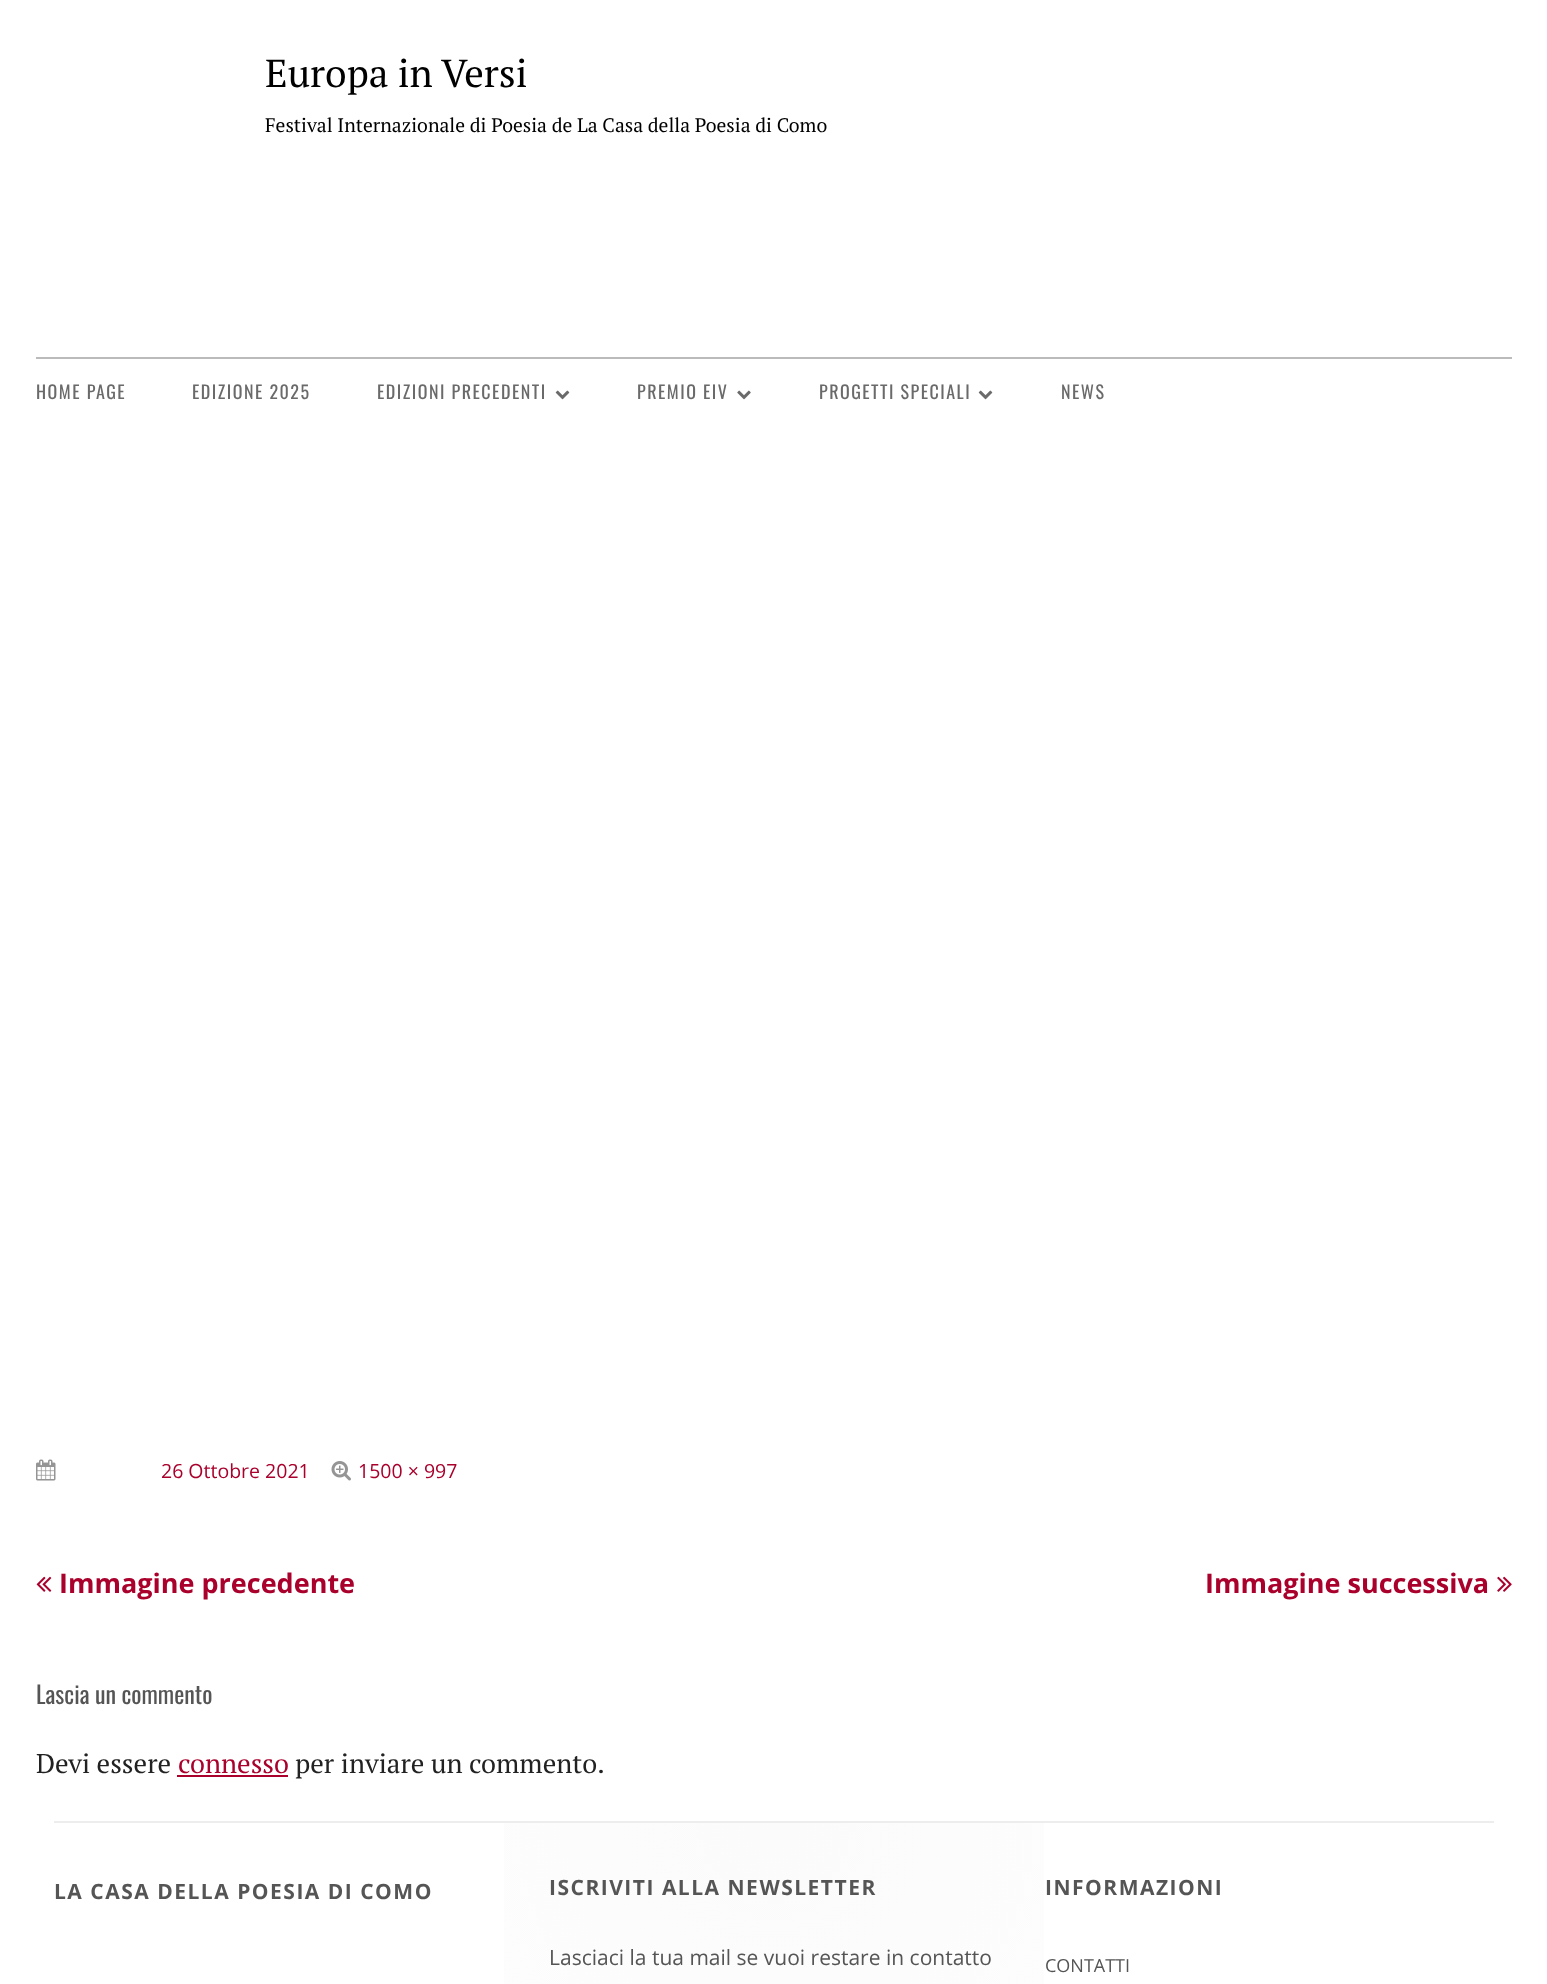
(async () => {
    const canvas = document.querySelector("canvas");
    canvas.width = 1547;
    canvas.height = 1984;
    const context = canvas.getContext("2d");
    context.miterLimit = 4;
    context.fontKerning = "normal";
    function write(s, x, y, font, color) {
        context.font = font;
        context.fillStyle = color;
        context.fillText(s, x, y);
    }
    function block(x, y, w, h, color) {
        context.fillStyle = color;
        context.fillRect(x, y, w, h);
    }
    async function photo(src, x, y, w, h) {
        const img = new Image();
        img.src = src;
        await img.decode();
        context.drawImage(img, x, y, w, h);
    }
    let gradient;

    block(0, 0, 1547, 1984, "rgb(255, 255, 255)");
    write("Europa in Versi", 265, 87, "39px PT Serif", "rgb(0, 0, 0)");
    write("Festival Internazionale di Poesia de La Casa della Poesia di Como", 265, 132, "19.5px PT Serif", "rgb(0, 0, 0)");
    block(36, 357, 1476, 2, "rgb(187, 187, 187)");
    context.letterSpacing = "1.5px";
    write("HOME PAGE", 36, 399, "18px Oswald", "rgb(106, 106, 106)");
    write("EDIZIONE 2025", 192, 399, "18px Oswald", "rgb(106, 106, 106)");
    write("EDIZIONI PRECEDENTI", 377, 399, "18px Oswald", "rgb(106, 106, 106)");
    await photo("media/1.png", 555, 390, 15, 10);
    write("PREMIO EIV", 637, 399, "18px Oswald", "rgb(106, 106, 106)");
    await photo("media/2.png", 737, 390, 14, 10);
    write("PROGETTI SPECIALI", 819, 399, "18px Oswald", "rgb(106, 106, 106)");
    await photo("media/1.png", 978, 390, 15, 10);
    write("NEWS", 1061, 399, "18px Oswald", "rgb(106, 106, 106)");
    await photo("media/3.png", 36, 1459, 20, 22);
    context.letterSpacing = "0px";
    write("26 Ottobre 2021", 161, 1478, "19.5px Open Sans", "rgb(169, 0, 44)");
    await photo("media/4.png", 331, 1461, 20, 20);
    write("1500 × 997", 358, 1478, "19.5px Open Sans", "rgb(169, 0, 44)");
    await photo("media/5.png", 36, 1576, 16, 16);
    write("Immagine precedente", 59, 1593, "bold 27px Open Sans", "rgb(169, 0, 44)");
    write("Immagine successiva", 1205, 1593, "bold 27px Open Sans", "rgb(169, 0, 44)");
    await photo("media/6.png", 1497, 1576, 15, 16);
    write("Lascia un commento", 36, 1704, "24px Oswald", "rgb(85, 85, 85)");
    write("Devi essere", 36, 1773, "27px PT Serif", "rgb(34, 34, 34)");
    write("connesso", 178, 1773, "27px PT Serif", "rgb(169, 0, 44)");
    block(177, 1775, 111, 2, "rgb(169, 0, 44)");
    write("per inviare un commento.", 295, 1773, "27px PT Serif", "rgb(34, 34, 34)");
    gradient = context.createRadialGradient(774, 1823, 0, 774, 1823, 720);
    gradient.addColorStop(0, "rgb(251, 251, 251)");
    gradient.addColorStop(1, "rgb(255, 255, 255)");
    context.fillStyle = gradient;
    context.fillRect(504, 1823, 540, 161);
    block(54, 1821, 1440, 2, "rgb(237, 237, 237)");
    context.letterSpacing = "1.5px";
    write("LA CASA DELLA POESIA DI COMO", 54, 1899, "bold 21px Open Sans", "rgb(85, 85, 85)");
    write("ISCRIVITI ALLA NEWSLETTER", 549, 1895, "bold 21px Open Sans", "rgb(85, 85, 85)");
    context.letterSpacing = "0px";
    write("Lasciaci la tua mail se vuoi restare in contatto", 549, 1965, "21px Open Sans", "rgb(85, 85, 85)");
    context.letterSpacing = "1.5px";
    write("INFORMAZIONI", 1045, 1895, "bold 21px Open Sans", "rgb(85, 85, 85)");
    context.letterSpacing = "0px";
    write("CONTATTI", 1045, 1972, "18px Open Sans", "rgb(85, 85, 85)");
})();
